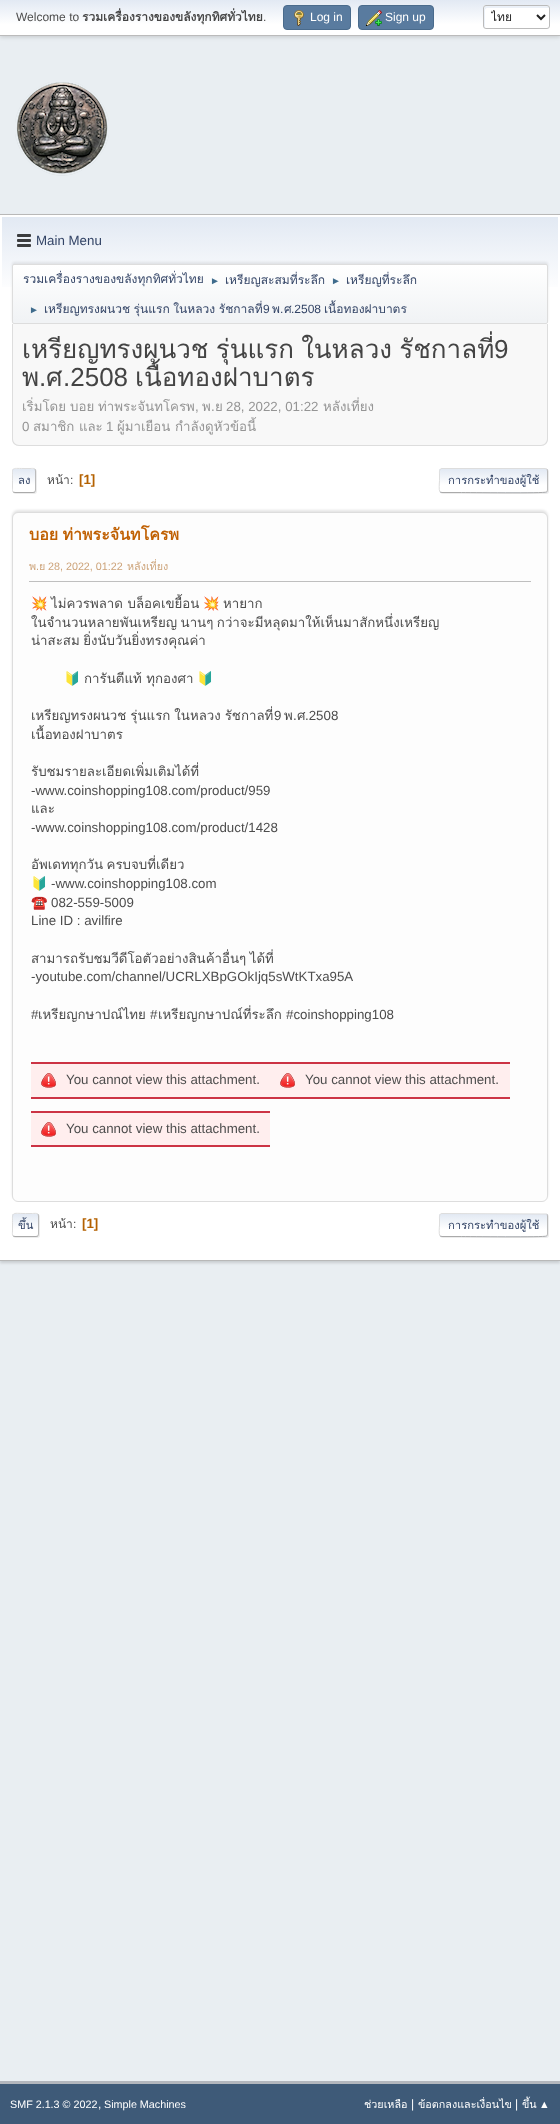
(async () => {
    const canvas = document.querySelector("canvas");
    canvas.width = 560;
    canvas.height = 2124;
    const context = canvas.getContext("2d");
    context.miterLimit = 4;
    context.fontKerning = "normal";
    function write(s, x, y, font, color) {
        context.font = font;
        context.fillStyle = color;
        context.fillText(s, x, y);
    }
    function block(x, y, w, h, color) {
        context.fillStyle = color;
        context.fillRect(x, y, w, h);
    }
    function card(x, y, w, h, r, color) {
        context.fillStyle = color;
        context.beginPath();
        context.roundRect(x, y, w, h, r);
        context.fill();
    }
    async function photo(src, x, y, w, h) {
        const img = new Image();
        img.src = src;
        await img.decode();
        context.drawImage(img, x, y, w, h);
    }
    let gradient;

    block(0, 0, 560, 2124, "rgb(233, 238, 242)");
    context.fillStyle = "rgba(0, 0, 0, 0.16)";
    context.filter = "blur(2px)";
    context.beginPath();
    context.rect(0, 1, 560, 36);
    context.fill();
    context.filter = "none";
    gradient = context.createLinearGradient(280, 0, 280, 35);
    gradient.addColorStop(0, "rgb(226, 233, 243)");
    gradient.addColorStop(0.7, "rgb(255, 255, 255)");
    context.fillStyle = gradient;
    context.fillRect(0, 0, 560, 35);
    block(0, 35, 560, 1, "rgb(187, 187, 187)");
    write("Welcome to", 16, 21, "12px Liberation Sans", "rgb(77, 77, 77)");
    write("รวมเครื่องรางของขลังทุกทิศทั่วไทย", 82, 21, "bold 12px Loma", "rgb(68, 68, 68)");
    write(".", 263, 21, "12px Liberation Sans", "rgb(77, 77, 77)");
    context.fillStyle = "rgb(89, 123, 159)";
    context.beginPath();
    context.roundRect(283.5, 5.5, 67, 24, 3.5);
    context.fill();
    context.strokeStyle = "rgb(74, 107, 140)";
    context.stroke();
    await photo("media/1.png", 294, 10, 10, 16);
    write("Log in", 310, 21, "12px Liberation Sans", "rgb(255, 255, 255)");
    context.fillStyle = "rgb(89, 123, 159)";
    context.beginPath();
    context.roundRect(358.5, 5.5, 75, 24, 3.5);
    context.fill();
    context.stroke();
    await photo("media/2.png", 366, 10, 16, 16);
    write("Sign up", 385, 21, "12px Liberation Sans", "rgb(255, 255, 255)");
    card(483, 5, 67, 24, 3, "rgb(255, 255, 255)");
    context.fillStyle = "rgb(236, 241, 248)";
    context.beginPath();
    context.moveTo(487, 8);
    context.lineTo(549, 8);
    context.bezierCurveTo(549, 7, 549, 7, 548, 6);
    context.lineTo(496, 6);
    context.bezierCurveTo(487, 6, 484, 3, 484, 11);
    context.bezierCurveTo(484, 14, 483, 26, 485, 28);
    context.lineTo(485, 10);
    context.bezierCurveTo(485, 9, 486, 8, 487, 8);
    context.closePath();
    context.fill();
    context.beginPath();
    context.roundRect(483.5, 5.5, 66, 23, 2.5);
    context.strokeStyle = "rgb(187, 187, 187)";
    context.stroke();
    context.beginPath();
    context.moveTo(537, 15);
    context.lineTo(541, 19);
    context.lineTo(545, 15);
    context.strokeStyle = "rgb(34, 34, 34)";
    context.lineWidth = 2;
    context.stroke();
    context.save();
    context.beginPath();
    context.rect(491, 9, 40, 16);
    context.clip();
    write("ไทย", 491, 21, "12px Loma", "rgb(34, 34, 34)");
    context.restore();
    await photo("media/3.png", 15, 82, 94, 94);
    context.fillStyle = "rgba(0, 0, 0, 0.14)";
    context.filter = "blur(1.5px)";
    context.beginPath();
    context.rect(0, 216, 560, 1047);
    context.fill();
    context.filter = "none";
    block(0, 215, 560, 1045, "rgb(255, 255, 255)");
    block(0, 214, 560, 1, "rgb(184, 184, 184)");
    block(0, 1260, 560, 1, "rgb(184, 184, 184)");
    gradient = context.createLinearGradient(280, 217, 280, 326);
    gradient.addColorStop(0, "rgb(226, 233, 243)");
    gradient.addColorStop(0.7, "rgb(255, 255, 255)");
    context.fillStyle = gradient;
    context.fillRect(2, 217, 556, 70);
    await photo("media/4.png", 17, 234, 14, 13);
    write("Main Menu", 36, 245, "13.3px Liberation Sans", "rgb(51, 68, 102)");
    context.fillStyle = "rgba(0, 0, 0, 0.08)";
    context.filter = "blur(1px)";
    context.beginPath();
    context.roundRect(12, 262, 536, 60, 2);
    context.fill();
    context.filter = "none";
    context.save();
    context.beginPath();
    context.roundRect(12, 264, 536, 60, 2);
    context.clip();
    gradient = context.createLinearGradient(280, 265, 280, 323);
    gradient.addColorStop(0, "rgb(255, 255, 255)");
    gradient.addColorStop(0.95, "rgb(241, 243, 245)");
    context.fillStyle = gradient;
    context.fillRect(12, 265, 536, 58);
    context.restore();
    context.beginPath();
    context.roundRect(12.5, 264.5, 535, 59, 1.5);
    context.strokeStyle = "rgb(221, 221, 221)";
    context.lineWidth = 1;
    context.stroke();
    write("รวมเครื่องรางของขลังทุกทิศทั่วไทย", 23, 283, "12px Loma", "rgb(51, 68, 102)");
    write("►", 210, 284, "10px Liberation Sans", "rgb(63, 107, 140)");
    write("เหรียญสะสมที่ระลึก", 225, 284, "12px Loma", "rgb(51, 68, 102)");
    write("►", 331, 284, "10px Liberation Sans", "rgb(63, 107, 140)");
    write("เหรียญที่ระลึก", 346, 284, "12px Loma", "rgb(51, 68, 102)");
    write("►", 29, 313, "10px Liberation Sans", "rgb(63, 107, 140)");
    context.wordSpacing = "-0.5px";
    write("เหรียญทรงผนวช รุ่นแรก ในหลวง รัชกาลที่", 44, 313, "12px Loma", "rgb(51, 68, 102)");
    context.wordSpacing = "0px";
    write("9", 263, 313, "12px Liberation Sans", "rgb(51, 68, 102)");
    write("พ", 272, 313, "12px Loma", "rgb(51, 68, 102)");
    write(".", 280, 313, "12px Liberation Sans", "rgb(51, 68, 102)");
    write("ศ", 284, 313, "12px Loma", "rgb(51, 68, 102)");
    write(".2508", 291, 313, "12px Liberation Sans", "rgb(51, 68, 102)");
    write("เนื้อทองฝาบาตร", 324, 313, "12px Loma", "rgb(51, 68, 102)");
    context.fillStyle = "rgb(248, 248, 248)";
    context.beginPath();
    context.roundRect(12, 324, 536, 122, [0, 0, 7, 7]);
    context.fill();
    context.fillStyle = "rgb(221, 221, 221)";
    context.beginPath();
    context.moveTo(12, 324);
    context.lineTo(548, 324);
    context.lineTo(548, 439);
    context.bezierCurveTo(548, 443, 545, 446, 541, 446);
    context.lineTo(19, 446);
    context.bezierCurveTo(15, 446, 12, 443, 12, 439);
    context.closePath();
    context.moveTo(13, 324);
    context.lineTo(547, 324);
    context.lineTo(547, 439);
    context.bezierCurveTo(547, 442, 544, 445, 541, 445);
    context.lineTo(19, 445);
    context.bezierCurveTo(16, 445, 13, 442, 13, 439);
    context.closePath();
    context.fill("evenodd");
    context.wordSpacing = "-1.5px";
    write("เหรียญทรงผนวช รุ่นแรก ในหลวง รัชกาลที่", 22, 358, "26px Loma", "rgb(68, 68, 68)");
    context.wordSpacing = "0px";
    write("9", 494, 358, "26px Liberation Sans", "rgb(68, 68, 68)");
    write("พ", 22, 386, "26px Loma", "rgb(68, 68, 68)");
    write(".", 39, 386, "26px Liberation Sans", "rgb(68, 68, 68)");
    write("ศ", 46, 386, "26px Loma", "rgb(68, 68, 68)");
    write(".2508", 63, 386, "26px Liberation Sans", "rgb(68, 68, 68)");
    write("เนื้อทองฝาบาตร", 135, 386, "26px Loma", "rgb(68, 68, 68)");
    write("เริ่มโดย", 22, 411, "13.3px Loma", "rgb(149, 149, 149)");
    write("บอย", 70, 411, "13.3px Loma", "rgb(149, 149, 149)");
    write("ท่าพระจันทโครพ", 98, 411, "13.3px Loma", "rgb(149, 149, 149)");
    write(",", 195, 411, "13.3px Liberation Sans", "rgb(149, 149, 149)");
    write("พ", 202, 411, "13.3px Loma", "rgb(149, 149, 149)");
    write(".", 211, 411, "13.3px Liberation Sans", "rgb(149, 149, 149)");
    write("ย", 215, 411, "13.3px Loma", "rgb(149, 149, 149)");
    write("28, 2022, 01:22", 226, 411, "13.3px Liberation Sans", "rgb(149, 149, 149)");
    write("หลังเที่ยง", 323, 411, "13.3px Loma", "rgb(149, 149, 149)");
    write("0", 22, 431, "13.3px Liberation Sans", "rgb(149, 149, 149)");
    write("สมาชิก และ", 33, 431, "13.3px Loma", "rgb(149, 149, 149)");
    write("1", 106, 431, "13.3px Liberation Sans", "rgb(149, 149, 149)");
    write("ผู้มาเยือน กำลังดูหัวข้อนี้", 117, 431, "13.3px Loma", "rgb(149, 149, 149)");
    context.fillStyle = "rgba(221, 221, 221, 0.57)";
    context.filter = "blur(0.5px)";
    context.beginPath();
    context.roundRect(13, 469, 24, 25, 3);
    context.fill();
    context.filter = "none";
    context.save();
    context.beginPath();
    context.roundRect(12, 468, 24, 25, 3);
    context.clip();
    gradient = context.createLinearGradient(24, 469, 24, 492);
    gradient.addColorStop(0, "rgb(226, 233, 243)");
    gradient.addColorStop(0.7, "rgb(255, 255, 255)");
    context.fillStyle = gradient;
    context.fillRect(12, 469, 24, 23);
    context.restore();
    context.beginPath();
    context.moveTo(35, 469);
    context.bezierCurveTo(35, 469.5, 35.5, 470.5, 35.5, 471);
    context.lineTo(35.5, 490);
    context.bezierCurveTo(35.5, 490.5, 35, 491.5, 35, 492);
    context.strokeStyle = "rgb(187, 187, 187)";
    context.stroke();
    context.beginPath();
    context.moveTo(35, 492);
    context.bezierCurveTo(34.5, 492, 33.5, 492.5, 33, 492.5);
    context.lineTo(15, 492.5);
    context.bezierCurveTo(14.5, 492.5, 13.5, 492, 13, 492);
    context.strokeStyle = "rgb(170, 170, 170)";
    context.stroke();
    context.save();
    context.beginPath();
    context.rect(12, 461, 536, 39);
    context.clip();
    context.beginPath();
    context.moveTo(13, 492);
    context.bezierCurveTo(12, 490.5, 12.5, 488, 12.5, 487);
    context.lineTo(12.5, 480.5);
    context.bezierCurveTo(12.5, 466.5, 10.5, 468.5, 24, 468.5);
    context.lineTo(30, 468.5);
    context.bezierCurveTo(31.5, 468.5, 33.5, 468, 35, 469);
    context.strokeStyle = "rgb(221, 221, 221)";
    context.stroke();
    context.restore();
    write("ลง", 18, 484, "11.25px Loma", "rgb(51, 68, 102)");
    write("หน้า", 47, 484, "12px Loma", "rgb(77, 77, 77)");
    write(":", 70, 484, "12px Liberation Sans", "rgb(77, 77, 77)");
    write("[1]", 79, 484, "bold 13.3px Liberation Sans", "rgb(180, 97, 0)");
    context.save();
    context.beginPath();
    context.moveTo(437, 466);
    context.lineTo(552, 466);
    context.lineTo(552, 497);
    context.lineTo(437, 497);
    context.closePath();
    context.moveTo(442, 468);
    context.lineTo(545, 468);
    context.bezierCurveTo(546.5, 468, 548, 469.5, 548, 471);
    context.lineTo(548, 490);
    context.bezierCurveTo(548, 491.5, 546.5, 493, 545, 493);
    context.lineTo(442, 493);
    context.bezierCurveTo(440.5, 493, 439, 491.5, 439, 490);
    context.lineTo(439, 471);
    context.bezierCurveTo(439, 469.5, 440.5, 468, 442, 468);
    context.closePath();
    context.clip("evenodd");
    context.fillStyle = "rgba(221, 221, 221, 0.57)";
    context.filter = "blur(0.5px)";
    context.beginPath();
    context.roundRect(440, 469, 109, 25, 3);
    context.fill();
    context.filter = "none";
    context.restore();
    context.save();
    context.beginPath();
    context.roundRect(439, 468, 109, 25, 3);
    context.clip();
    gradient = context.createLinearGradient(494, 469, 494, 492);
    gradient.addColorStop(0, "rgb(226, 233, 243)");
    gradient.addColorStop(0.7, "rgb(255, 255, 255)");
    context.fillStyle = gradient;
    context.fillRect(439, 469, 109, 23);
    gradient = context.createLinearGradient(494, 492, 494, 515);
    gradient.addColorStop(0, "rgb(226, 233, 243)");
    gradient.addColorStop(0.7, "rgb(255, 255, 255)");
    context.fillStyle = gradient;
    context.fillRect(439, 492, 109, 1);
    context.restore();
    context.beginPath();
    context.moveTo(547, 469);
    context.bezierCurveTo(547, 469.5, 547.5, 470.5, 547.5, 471);
    context.lineTo(547.5, 490);
    context.bezierCurveTo(547.5, 490.5, 547, 491.5, 547, 492);
    context.strokeStyle = "rgb(187, 187, 187)";
    context.stroke();
    context.beginPath();
    context.moveTo(547, 492);
    context.lineTo(546.5, 492);
    context.bezierCurveTo(544.5, 493.5, 468, 492.5, 459, 492.5);
    context.lineTo(442, 492.5);
    context.lineTo(440, 492);
    context.strokeStyle = "rgb(170, 170, 170)";
    context.stroke();
    context.beginPath();
    context.moveTo(440, 492);
    context.bezierCurveTo(438.5, 490, 439.5, 483, 439.5, 480.5);
    context.lineTo(439.5, 474);
    context.bezierCurveTo(439.5, 472, 439, 468.5, 442, 468.5);
    context.lineTo(545, 468.5);
    context.lineTo(547, 469);
    context.strokeStyle = "rgb(221, 221, 221)";
    context.stroke();
    write("การกระทำของผู้ใช้", 448, 484, "11.25px Loma", "rgb(51, 68, 102)");
    context.fillStyle = "rgba(0, 0, 0, 0.1)";
    context.filter = "blur(1px)";
    context.beginPath();
    context.roundRect(12, 510, 536, 690, 6);
    context.fill();
    context.filter = "none";
    context.fillStyle = "rgb(253, 253, 253)";
    context.beginPath();
    context.roundRect(12.5, 512.5, 535, 689, 5.5);
    context.fill();
    context.stroke();
    context.wordSpacing = "-1px";
    write("บอย ท่าพระจันทโครพ", 29, 540, "bold 16px Loma", "rgb(192, 96, 2)");
    context.wordSpacing = "0px";
    write("พ", 29, 570, "10.75px Loma", "rgb(205, 164, 123)");
    write(".", 36, 570, "10.75px Liberation Sans", "rgb(205, 164, 123)");
    write("ย", 39, 570, "10.75px Loma", "rgb(205, 164, 123)");
    write("28, 2022, 01:22", 48, 570, "10.75px Liberation Sans", "rgb(205, 164, 123)");
    write("หลังเที่ยง", 127, 570, "10.75px Loma", "rgb(205, 164, 123)");
    block(29, 581, 502, 1, "rgb(191, 191, 191)");
    write("💥", 31, 608, "13.3px Noto Color Emoji", "rgb(77, 77, 77)");
    write("ไม่ควรพลาด บล็อคเขยื้อน", 51, 608, "13.3px Loma", "rgb(77, 77, 77)");
    write("💥", 203, 608, "13.3px Noto Color Emoji", "rgb(77, 77, 77)");
    write("หายาก", 223, 608, "13.3px Loma", "rgb(77, 77, 77)");
    context.wordSpacing = "-1px";
    write("ในจำนวนหลายพันเหรียญ นานๆ กว่าจะมีหลุดมาให้เห็นมาสักหนึ่งเหรียญ", 31, 627, "13.3px Loma", "rgb(77, 77, 77)");
    context.save();
    context.beginPath();
    context.rect(29, 580, 502, 594);
    context.clip();
    write("น่าสะสม ยิ่งนับวันยิ่งทรงคุณค่า", 31, 645, "13.3px Loma", "rgb(77, 77, 77)");
    context.restore();
    context.wordSpacing = "0px";
    write("🔰", 64, 683, "13.3px Noto Color Emoji", "rgb(77, 77, 77)");
    write("การันตีแท้ ทุกองศา", 84, 683, "13.3px Loma", "rgb(77, 77, 77)");
    write("🔰", 197, 683, "13.3px Noto Color Emoji", "rgb(77, 77, 77)");
    context.wordSpacing = "-0.5px";
    write("เหรียญทรงผนวช รุ่นแรก ในหลวง รัชกาลที่", 31, 720, "13.3px Loma", "rgb(77, 77, 77)");
    context.wordSpacing = "0px";
    write("9", 274, 720, "13.3px Liberation Sans", "rgb(77, 77, 77)");
    write("พ", 284, 720, "13.3px Loma", "rgb(77, 77, 77)");
    write(".", 293, 720, "13.3px Liberation Sans", "rgb(77, 77, 77)");
    write("ศ", 297, 720, "13.3px Loma", "rgb(77, 77, 77)");
    write(".2508", 305, 720, "13.3px Liberation Sans", "rgb(77, 77, 77)");
    context.save();
    context.beginPath();
    context.rect(29, 580, 502, 594);
    context.clip();
    write("เนื้อทองฝาบาตร", 31, 739, "13.3px Loma", "rgb(77, 77, 77)");
    write("รับชมรายละเอียดเพิ่มเติมได้ที่", 31, 776, "13.3px Loma", "rgb(77, 77, 77)");
    context.restore();
    write("-www.coinshopping108.com/product/959", 31, 795, "13.3px Liberation Sans", "rgb(77, 77, 77)");
    write("และ", 31, 813, "13.3px Loma", "rgb(77, 77, 77)");
    write("-www.coinshopping108.com/product/1428", 31, 832, "13.3px Liberation Sans", "rgb(77, 77, 77)");
    context.save();
    context.beginPath();
    context.rect(29, 580, 502, 594);
    context.clip();
    context.wordSpacing = "-1px";
    write("อัพเดททุกวัน ครบจบที่เดียว", 31, 869, "13.3px Loma", "rgb(77, 77, 77)");
    context.restore();
    write("🔰", 31, 888, "13.3px Noto Color Emoji", "rgb(77, 77, 77)");
    write("-www.coinshopping108.com", 51, 888, "13.3px Liberation Sans", "rgb(77, 77, 77)");
    write("☎️", 31, 907, "13.3px Noto Color Emoji", "rgb(77, 77, 77)");
    write("082-559-5009", 51, 907, "13.3px Liberation Sans", "rgb(77, 77, 77)");
    write("Line ID : avilfire", 31, 925, "13.3px Liberation Sans", "rgb(77, 77, 77)");
    context.wordSpacing = "-1px";
    write("สามารถรับชมวีดีโอตัวอย่างสินค้าอื่นๆ ได้ที่", 31, 963, "13.3px Loma", "rgb(77, 77, 77)");
    context.wordSpacing = "0px";
    write("-youtube.com/channel/UCRLXBpGOkIjq5sWtKTxa95A", 31, 981, "13.3px Liberation Sans", "rgb(77, 77, 77)");
    write("#", 31, 1019, "13.3px Liberation Sans", "rgb(77, 77, 77)");
    write("เหรียญกษาปณ์ไทย", 38, 1019, "13.3px Loma", "rgb(77, 77, 77)");
    write("#", 150, 1019, "13.3px Liberation Sans", "rgb(77, 77, 77)");
    write("เหรียญกษาปณ์ที่ระลึก", 158, 1019, "13.3px Loma", "rgb(77, 77, 77)");
    write("#coinshopping108", 286, 1019, "13.3px Liberation Sans", "rgb(77, 77, 77)");
    block(31, 1064, 479, 33, "rgb(255, 238, 238)");
    block(31, 1062, 479, 2, "rgb(204, 51, 68)");
    block(31, 1097, 479, 2, "rgb(204, 51, 68)");
    await photo("media/5.png", 41, 1073, 15, 15);
    write("You cannot view this attachment.", 66, 1084, "13.3px Liberation Sans", "rgb(77, 77, 77)");
    await photo("media/5.png", 280, 1073, 15, 15);
    write("You cannot view this attachment.", 305, 1084, "13.3px Liberation Sans", "rgb(77, 77, 77)");
    block(31, 1113, 239, 32, "rgb(255, 238, 238)");
    block(31, 1111, 239, 2, "rgb(204, 51, 68)");
    block(31, 1145, 239, 2, "rgb(204, 51, 68)");
    await photo("media/5.png", 41, 1122, 15, 15);
    write("You cannot view this attachment.", 66, 1133, "13.3px Liberation Sans", "rgb(77, 77, 77)");
    context.fillStyle = "rgba(221, 221, 221, 0.57)";
    context.filter = "blur(0.5px)";
    context.beginPath();
    context.roundRect(13, 1214, 27, 24, 3);
    context.fill();
    context.filter = "none";
    context.save();
    context.beginPath();
    context.roundRect(12, 1213, 27, 24, 3);
    context.clip();
    gradient = context.createLinearGradient(26, 1214, 26, 1236);
    gradient.addColorStop(0, "rgb(226, 233, 243)");
    gradient.addColorStop(0.7, "rgb(255, 255, 255)");
    context.fillStyle = gradient;
    context.fillRect(12, 1214, 27, 22);
    context.restore();
    context.beginPath();
    context.moveTo(38, 1214);
    context.bezierCurveTo(38, 1214.5, 38.5, 1215.5, 38.5, 1216);
    context.lineTo(38.5, 1234);
    context.bezierCurveTo(38.5, 1234.5, 38, 1235.5, 38, 1236);
    context.strokeStyle = "rgb(187, 187, 187)";
    context.stroke();
    context.beginPath();
    context.moveTo(38, 1236);
    context.bezierCurveTo(37.5, 1236, 36.5, 1236.5, 36, 1236.5);
    context.lineTo(15, 1236.5);
    context.bezierCurveTo(14.5, 1236.5, 13.5, 1236, 13, 1236);
    context.strokeStyle = "rgb(170, 170, 170)";
    context.stroke();
    context.beginPath();
    context.moveTo(13, 1236);
    context.bezierCurveTo(12, 1234.5, 12.5, 1232.5, 12.5, 1231);
    context.lineTo(12.5, 1225);
    context.bezierCurveTo(12.5, 1211, 11, 1213.5, 25.5, 1213.5);
    context.lineTo(32.5, 1213.5);
    context.bezierCurveTo(34, 1213.5, 36.5, 1213, 38, 1214);
    context.strokeStyle = "rgb(221, 221, 221)";
    context.stroke();
    write("ขึ้น", 18, 1229, "11.25px Loma", "rgb(51, 68, 102)");
    write("หน้า", 50, 1228, "12px Loma", "rgb(77, 77, 77)");
    write(":", 73, 1228, "12px Liberation Sans", "rgb(77, 77, 77)");
    write("[1]", 82, 1228, "bold 13.3px Liberation Sans", "rgb(180, 97, 0)");
    context.save();
    context.beginPath();
    context.moveTo(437, 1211);
    context.lineTo(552, 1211);
    context.lineTo(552, 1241);
    context.lineTo(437, 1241);
    context.closePath();
    context.moveTo(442, 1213);
    context.lineTo(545, 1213);
    context.bezierCurveTo(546.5, 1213, 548, 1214.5, 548, 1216);
    context.lineTo(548, 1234);
    context.bezierCurveTo(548, 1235.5, 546.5, 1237, 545, 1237);
    context.lineTo(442, 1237);
    context.bezierCurveTo(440.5, 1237, 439, 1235.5, 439, 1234);
    context.lineTo(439, 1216);
    context.bezierCurveTo(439, 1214.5, 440.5, 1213, 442, 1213);
    context.closePath();
    context.clip("evenodd");
    context.fillStyle = "rgba(221, 221, 221, 0.57)";
    context.filter = "blur(0.5px)";
    context.beginPath();
    context.roundRect(440, 1214, 109, 24, 3);
    context.fill();
    context.filter = "none";
    context.restore();
    card(439, 1213, 109, 24, 3, "rgb(255, 255, 255)");
    context.save();
    context.beginPath();
    context.roundRect(439, 1213, 109, 24, 3);
    context.clip();
    gradient = context.createLinearGradient(494, 1214, 494, 1236);
    gradient.addColorStop(0, "rgb(226, 233, 243)");
    gradient.addColorStop(0.7, "rgb(255, 255, 255)");
    context.fillStyle = gradient;
    context.fillRect(439, 1214, 109, 22);
    gradient = context.createLinearGradient(494, 1236, 494, 1258);
    gradient.addColorStop(0, "rgb(226, 233, 243)");
    gradient.addColorStop(0.7, "rgb(255, 255, 255)");
    context.fillStyle = gradient;
    context.fillRect(439, 1236, 109, 1);
    context.restore();
    context.beginPath();
    context.moveTo(547, 1214);
    context.bezierCurveTo(547, 1214.5, 547.5, 1215.5, 547.5, 1216);
    context.lineTo(547.5, 1234);
    context.bezierCurveTo(547.5, 1234.5, 547, 1235.5, 547, 1236);
    context.strokeStyle = "rgb(187, 187, 187)";
    context.stroke();
    context.beginPath();
    context.moveTo(547, 1236);
    context.lineTo(546.5, 1236);
    context.bezierCurveTo(544.5, 1237.5, 468, 1236.5, 459, 1236.5);
    context.lineTo(442, 1236.5);
    context.lineTo(440, 1236);
    context.strokeStyle = "rgb(170, 170, 170)";
    context.stroke();
    context.beginPath();
    context.moveTo(440, 1236);
    context.bezierCurveTo(438.5, 1234, 439.5, 1227, 439.5, 1225);
    context.lineTo(439.5, 1219);
    context.bezierCurveTo(439.5, 1217, 439, 1213.5, 442, 1213.5);
    context.lineTo(546, 1214);
    context.lineTo(547, 1214);
    context.strokeStyle = "rgb(221, 221, 221)";
    context.stroke();
    write("การกระทำของผู้ใช้", 448, 1229, "11.25px Loma", "rgb(51, 68, 102)");
    block(0, 2084, 560, 40, "rgb(62, 90, 120)");
    block(0, 2081, 560, 3, "rgb(178, 182, 189)");
    write("SMF 2.1.3 © 2022", 10, 2108, "10.75px Liberation Sans", "rgb(255, 255, 255)");
    write(",", 98, 2108, "12px Liberation Sans", "rgb(255, 255, 255)");
    write("Simple Machines", 104, 2108, "10.75px Liberation Sans", "rgb(255, 255, 255)");
    write("ช่วยเหลือ", 364, 2108, "10.75px Loma", "rgb(255, 255, 255)");
    write("|", 411, 2108, "12px Liberation Sans", "rgb(255, 255, 255)");
    write("ข้อตกลงและเงื่อนไข", 418, 2108, "10.75px Loma", "rgb(255, 255, 255)");
    write("|", 515, 2108, "12px Liberation Sans", "rgb(255, 255, 255)");
    write("ขึ้น", 522, 2108, "10.75px Loma", "rgb(255, 255, 255)");
    write("▲", 539, 2108, "10.75px Liberation Sans", "rgb(255, 255, 255)");
})();
